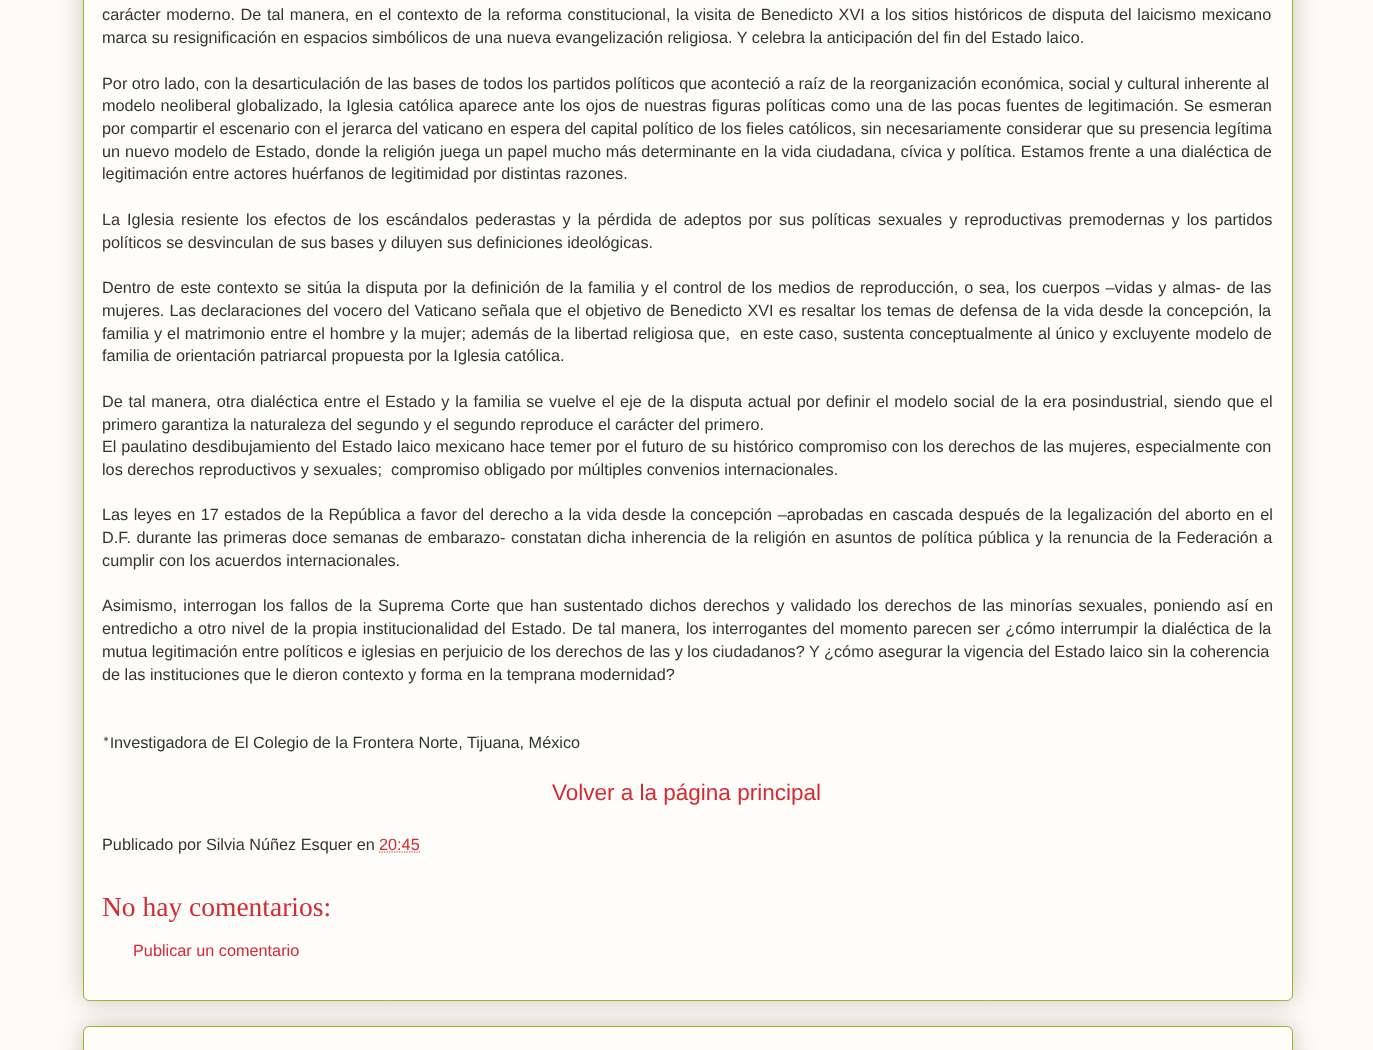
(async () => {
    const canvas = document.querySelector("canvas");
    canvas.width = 1373;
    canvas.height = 1050;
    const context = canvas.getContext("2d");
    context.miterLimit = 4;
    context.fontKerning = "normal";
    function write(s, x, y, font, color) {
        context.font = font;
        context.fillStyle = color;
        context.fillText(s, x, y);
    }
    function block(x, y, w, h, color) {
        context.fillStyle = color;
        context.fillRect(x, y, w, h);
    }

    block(0, 0, 1373, 1050, "rgb(252, 251, 245)");
    context.fillStyle = "rgba(0, 0, 0, 0.2)";
    context.filter = "blur(12.5px)";
    context.beginPath();
    context.roundRect(83, 1026, 1210, 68, 6);
    context.fill();
    context.filter = "none";
    context.fillStyle = "rgb(254, 253, 250)";
    context.beginPath();
    context.roundRect(83.5, 1026.5, 1209, 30, 5.5);
    context.fill();
    context.strokeStyle = "rgb(170, 177, 35)";
    context.stroke();
    context.fillStyle = "rgba(0, 0, 0, 0.2)";
    context.filter = "blur(12.5px)";
    context.beginPath();
    context.roundRect(83, -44, 1210, 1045, 6);
    context.fill();
    context.filter = "none";
    context.fillStyle = "rgb(254, 253, 250)";
    context.beginPath();
    context.roundRect(83.5, -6.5, 1209, 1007, 5.5);
    context.fill();
    context.stroke();
    context.wordSpacing = "1.1px";
    write("carácter moderno. De tal manera, en el contexto de la reforma constitucional, la visita de Benedicto XVI a los sitios históricos de disputa del laicismo mexicano", 102, 20, "16.25px Liberation Sans", "rgb(51, 51, 51)");
    context.wordSpacing = "0px";
    write("marca su resignificación en espacios simbólicos de una nueva evangelización religiosa. Y celebra la anticipación del fin del Estado laico.", 102, 43, "16.25px Liberation Sans", "rgb(51, 51, 51)");
    write("Por otro lado, con la desarticulación de las bases de todos los partidos políticos que aconteció a raíz de la reorganización económica, social y cultural inherente al", 102, 89, "16.25px Liberation Sans", "rgb(51, 51, 51)");
    context.wordSpacing = "0.75px";
    write("modelo neoliberal globalizado, la Iglesia católica aparece ante los ojos de nuestras figuras políticas como una de las pocas fuentes de legitimación. Se esmeran", 102, 111, "16.25px Liberation Sans", "rgb(51, 51, 51)");
    context.wordSpacing = "0px";
    write("por compartir el escenario con el jerarca del vaticano en espera del capital político de los fieles católicos, sin necesariamente considerar que su presencia legítima", 102, 134, "16.25px Liberation Sans", "rgb(51, 51, 51)");
    context.wordSpacing = "0.35px";
    write("un nuevo modelo de Estado, donde la religión juega un papel mucho más determinante en la vida ciudadana, cívica y política. Estamos frente a una dialéctica de", 102, 157, "16.25px Liberation Sans", "rgb(51, 51, 51)");
    context.wordSpacing = "0px";
    write("legitimación entre actores huérfanos de legitimidad por distintas razones.", 102, 179, "16.25px Liberation Sans", "rgb(51, 51, 51)");
    context.wordSpacing = "2.5px";
    write("La Iglesia resiente los efectos de los escándalos pederastas y la pérdida de adeptos por sus políticas sexuales y reproductivas premodernas y los partidos", 102, 225, "16.25px Liberation Sans", "rgb(51, 51, 51)");
    context.wordSpacing = "0px";
    write("políticos se desvinculan de sus bases y diluyen sus definiciones ideológicas.", 102, 248, "16.25px Liberation Sans", "rgb(51, 51, 51)");
    context.wordSpacing = "1.25px";
    write("Dentro de este contexto se sitúa la disputa por la definición de la familia y el control de los medios de reproducción, o sea, los cuerpos –vidas y almas- de las", 102, 293, "16.25px Liberation Sans", "rgb(51, 51, 51)");
    context.wordSpacing = "0.75px";
    write("mujeres. Las declaraciones del vocero del Vaticano señala que el objetivo de Benedicto XVI es resaltar los temas de defensa de la vida desde la concepción, la", 102, 316, "16.25px Liberation Sans", "rgb(51, 51, 51)");
    context.wordSpacing = "0.5px";
    write("familia y el matrimonio entre el hombre y la mujer; además de la libertad religiosa que,  en este caso, sustenta conceptualmente al único y excluyente modelo de", 102, 339, "16.25px Liberation Sans", "rgb(51, 51, 51)");
    context.wordSpacing = "0px";
    write("familia de orientación patriarcal propuesta por la Iglesia católica.", 102, 361, "16.25px Liberation Sans", "rgb(51, 51, 51)");
    context.wordSpacing = "1.2px";
    write("De tal manera, otra dialéctica entre el Estado y la familia se vuelve el eje de la disputa actual por definir el modelo social de la era posindustrial, siendo que el", 102, 407, "16.25px Liberation Sans", "rgb(51, 51, 51)");
    context.wordSpacing = "0px";
    write("primero garantiza la naturaleza del segundo y el segundo reproduce el carácter del primero.", 102, 430, "16.25px Liberation Sans", "rgb(51, 51, 51)");
    context.wordSpacing = "0.3px";
    write("El paulatino desdibujamiento del Estado laico mexicano hace temer por el futuro de su histórico compromiso con los derechos de las mujeres, especialmente con", 102, 452, "16.25px Liberation Sans", "rgb(51, 51, 51)");
    context.wordSpacing = "0px";
    write("los derechos reproductivos y sexuales;  compromiso obligado por múltiples convenios internacionales.", 102, 475, "16.25px Liberation Sans", "rgb(51, 51, 51)");
    context.wordSpacing = "1px";
    write("Las leyes en 17 estados de la República a favor del derecho a la vida desde la concepción –aprobadas en cascada después de la legalización del aborto en el", 102, 520, "16.25px Liberation Sans", "rgb(51, 51, 51)");
    write("D.F. durante las primeras doce semanas de embarazo- constatan dicha inherencia de la religión en asuntos de política pública y la renuncia de la Federación a", 102, 543, "16.25px Liberation Sans", "rgb(51, 51, 51)");
    context.wordSpacing = "0px";
    write("cumplir con los acuerdos internacionales.", 102, 566, "16.25px Liberation Sans", "rgb(51, 51, 51)");
    context.wordSpacing = "1.9px";
    write("Asimismo, interrogan los fallos de la Suprema Corte que han sustentado dichos derechos y validado los derechos de las minorías sexuales, poniendo así en", 102, 611, "16.25px Liberation Sans", "rgb(51, 51, 51)");
    context.wordSpacing = "1px";
    write("entredicho a otro nivel de la propia institucionalidad del Estado. De tal manera, los interrogantes del momento parecen ser ¿cómo interrumpir la dialéctica de la", 102, 634, "16.25px Liberation Sans", "rgb(51, 51, 51)");
    context.wordSpacing = "0px";
    write("mutua legitimación entre políticos e iglesias en perjuicio de los derechos de las y los ciudadanos? Y ¿cómo asegurar la vigencia del Estado laico sin la coherencia", 102, 657, "16.25px Liberation Sans", "rgb(51, 51, 51)");
    write("de las instituciones que le dieron contexto y forma en la temprana modernidad?", 102, 680, "16.25px Liberation Sans", "rgb(51, 51, 51)");
    write("*I", 102, 748, "16.25px Carlito", "rgb(51, 51, 51)");
    write("nvestigadora de El Colegio de la Frontera Norte, Tijuana, México", 114, 748, "16.25px Liberation Sans", "rgb(51, 51, 51)");
    write("Volver a la página principal", 552, 800, "22.5px Liberation Sans", "rgb(213, 42, 51)");
    write("Publicado por Silvia Núñez Esquer en", 102, 850, "16.25px Liberation Sans", "rgb(51, 51, 51)");
    write("20:45", 379, 850, "16.25px Liberation Sans", "rgb(213, 42, 51)");
    context.beginPath();
    context.moveTo(379, 852);
    context.lineTo(420, 852);
    context.strokeStyle = "rgb(213, 42, 51)";
    context.lineWidth = 1.2;
    context.setLineDash([1.25, 1.25]);
    context.stroke();
    write("No hay comentarios:", 102, 916, "27.5px Liberation Serif", "rgb(213, 42, 51)");
    write("Publicar un comentario", 133, 956, "16.25px Liberation Sans", "rgb(213, 42, 51)");
})();
